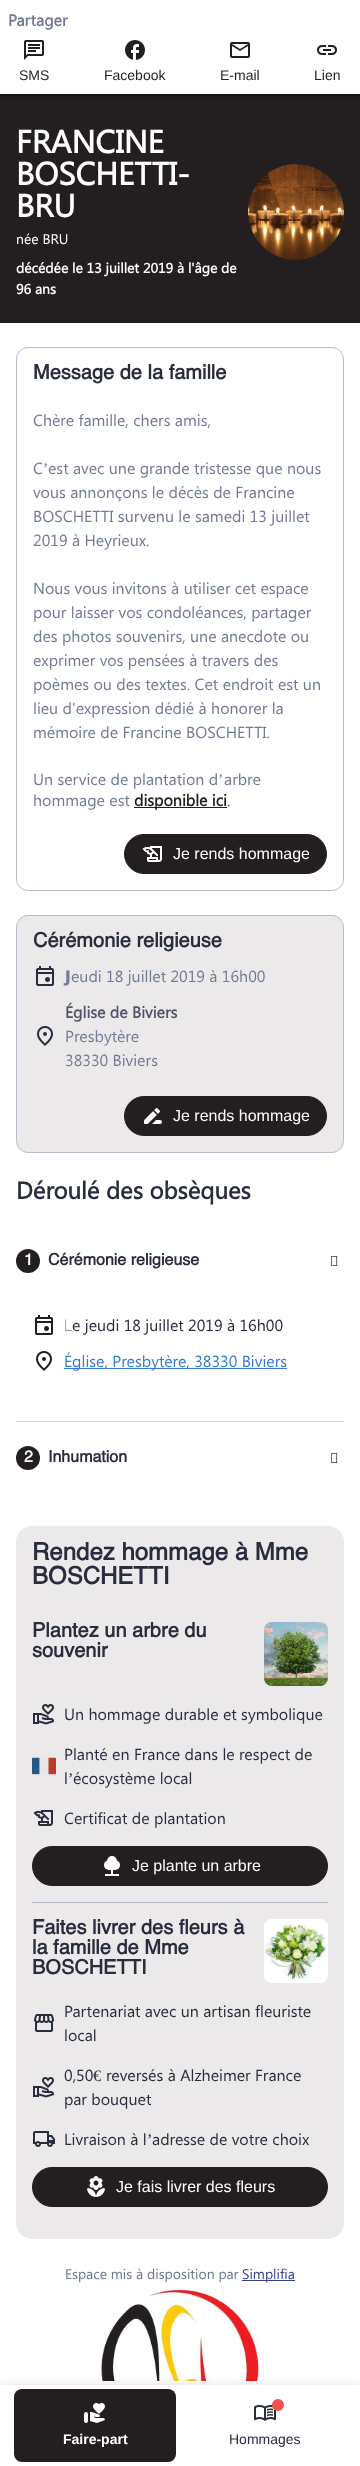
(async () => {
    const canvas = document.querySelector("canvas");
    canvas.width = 360;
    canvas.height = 2466;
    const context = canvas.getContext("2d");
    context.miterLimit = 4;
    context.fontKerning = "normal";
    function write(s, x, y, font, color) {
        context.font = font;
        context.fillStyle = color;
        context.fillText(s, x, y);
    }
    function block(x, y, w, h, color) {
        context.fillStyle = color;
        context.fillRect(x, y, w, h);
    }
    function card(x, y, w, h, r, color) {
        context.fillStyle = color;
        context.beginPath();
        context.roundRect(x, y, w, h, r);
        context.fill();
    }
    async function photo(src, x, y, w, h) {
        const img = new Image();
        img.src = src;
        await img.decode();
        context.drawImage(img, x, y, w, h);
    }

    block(0, 0, 360, 2466, "rgb(255, 255, 255)");
    block(0, 94, 360, 229, "rgb(35, 31, 32)");
    context.fillStyle = "rgba(0, 0, 0, 0.15)";
    context.filter = "blur(1.5px)";
    context.beginPath();
    context.rect(-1, 0, 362, 96);
    context.fill();
    context.filter = "none";
    context.fillStyle = "rgba(0, 0, 0, 0.3)";
    context.filter = "blur(1px)";
    context.beginPath();
    context.rect(0, 1, 360, 94);
    context.fill();
    context.filter = "none";
    block(0, 0, 360, 94, "rgb(255, 255, 255)");
    write("Partager", 8, 26, "bold 16px Segoe UI", "rgb(113, 123, 152)");
    await photo("media/1.png", 24, 40, 20, 20);
    write("SMS", 19, 80, "14px Liberation Sans", "rgb(35, 31, 32)");
    await photo("media/2.png", 125, 40, 20, 20);
    write("Facebook", 104, 80, "14px Liberation Sans", "rgb(35, 31, 32)");
    await photo("media/3.png", 230, 42, 20, 16);
    write("E-mail", 220, 80, "14px Liberation Sans", "rgb(35, 31, 32)");
    await photo("media/4.png", 317, 45, 20, 10);
    write("Lien", 314, 80, "14px Liberation Sans", "rgb(35, 31, 32)");
    write("FRANCINE", 16, 153, "bold 32px Segoe UI", "rgb(255, 255, 255)");
    write("BOSCHETTI-", 16, 185, "bold 32px Segoe UI", "rgb(255, 255, 255)");
    write("BRU", 16, 217, "bold 32px Segoe UI", "rgb(255, 255, 255)");
    write("née BRU", 16, 244, "14px Segoe UI", "rgb(255, 255, 255)");
    write("décédée le 13 juillet 2019 à l'âge de", 16, 273, "bold 14px Segoe UI", "rgb(255, 255, 255)");
    write("96 ans", 16, 294, "bold 14px Segoe UI", "rgb(255, 255, 255)");
    await photo("media/5.png", 248, 164, 96, 96);
    context.beginPath();
    context.roundRect(16.5, 347.5, 327, 543, 11.5);
    context.strokeStyle = "rgb(185, 189, 203)";
    context.stroke();
    write("Message de la famille", 33, 379, "bold 20px Helvetica", "rgb(40, 45, 62)");
    write("Chère famille, chers amis,", 33, 426, "16px Segoe UI", "rgb(113, 123, 152)");
    write("C", 33, 474, "16px Segoe UI", "rgb(113, 123, 152)");
    write("’", 43, 474, "16px Liberation Serif", "rgb(113, 123, 152)");
    write("est avec une grande tristesse que nous", 48, 474, "16px Segoe UI", "rgb(113, 123, 152)");
    write("vous annonçons le décès de Francine", 33, 498, "16px Segoe UI", "rgb(113, 123, 152)");
    write("BOSCHETTI survenu le samedi 13 juillet", 33, 522, "16px Segoe UI", "rgb(113, 123, 152)");
    write("2019 à Heyrieux.", 33, 546, "16px Segoe UI", "rgb(113, 123, 152)");
    write("Nous vous invitons à utiliser cet espace", 33, 594, "16px Segoe UI", "rgb(113, 123, 152)");
    write("pour laisser vos condoléances, partager", 33, 618, "16px Segoe UI", "rgb(113, 123, 152)");
    write("des photos souvenirs, une anecdote ou", 33, 642, "16px Segoe UI", "rgb(113, 123, 152)");
    write("exprimer vos pensées à travers des", 33, 666, "16px Segoe UI", "rgb(113, 123, 152)");
    write("poèmes ou des textes. Cet endroit est un", 33, 690, "16px Segoe UI", "rgb(113, 123, 152)");
    write("lieu d'expression dédié à honorer la", 33, 714, "16px Segoe UI", "rgb(113, 123, 152)");
    write("mémoire de Francine BOSCHETTI.", 33, 738, "16px Segoe UI", "rgb(113, 123, 152)");
    write("Un service de plantation d", 33, 785, "16px Segoe UI", "rgb(113, 123, 152)");
    write("’", 218, 785, "16px Liberation Serif", "rgb(113, 123, 152)");
    write("arbre", 224, 785, "16px Segoe UI", "rgb(113, 123, 152)");
    write("hommage est", 33, 806, "16px Segoe UI", "rgb(113, 123, 152)");
    block(134, 807, 93, 1, "rgb(35, 31, 32)");
    write("disponible ici", 134, 806, "bold 16px Segoe UI", "rgb(35, 31, 32)");
    write(".", 227, 806, "16px Segoe UI", "rgb(113, 123, 152)");
    context.fillStyle = "rgb(35, 31, 32)";
    context.beginPath();
    context.roundRect(124.5, 834.5, 202, 39, 19.5);
    context.fill();
    context.strokeStyle = "rgb(35, 31, 32)";
    context.stroke();
    await photo("media/6.png", 142, 846, 20, 16);
    write("Je rends hommage", 173, 859, "16px Liberation Sans", "rgb(255, 255, 255)");
    context.fillStyle = "rgb(236, 233, 234)";
    context.beginPath();
    context.roundRect(16.5, 915.5, 327, 237, 11.5);
    context.fill();
    context.strokeStyle = "rgb(185, 189, 203)";
    context.stroke();
    write("Cérémonie religieuse", 33, 947, "bold 20px Helvetica", "rgb(40, 45, 62)");
    await photo("media/7.png", 36, 966, 18, 20);
    write("J", 65, 982, "900 16px Noto Sans", "rgb(113, 123, 152)");
    write("eudi 18 juillet 2019 à 16h00", 71, 982, "16px Segoe UI", "rgb(113, 123, 152)");
    await photo("media/8.png", 37, 1026, 16, 20);
    write("Église de Biviers", 65, 1018, "bold 16px Segoe UI", "rgb(78, 85, 104)");
    write("Presbytère", 65, 1042, "16px Segoe UI", "rgb(113, 123, 152)");
    write("38330 Biviers", 65, 1066, "16px Segoe UI", "rgb(113, 123, 152)");
    context.fillStyle = "rgb(35, 31, 32)";
    context.beginPath();
    context.roundRect(124.5, 1096.5, 202, 39, 19.5);
    context.fill();
    context.strokeStyle = "rgb(35, 31, 32)";
    context.stroke();
    await photo("media/9.png", 144, 1108, 18, 16);
    write("Je rends hommage", 173, 1121, "16px Liberation Sans", "rgb(255, 255, 255)");
    write("Déroulé des obsèques", 16, 1199, "bold 24px Segoe UI", "rgb(40, 45, 62)");
    context.fillStyle = "rgb(35, 31, 32)";
    context.beginPath();
    context.arc(28, 1261, 12, 0, Math.PI * 2);
    context.fill();
    write("1", 24, 1265, "bold 16px Helvetica", "rgb(255, 255, 255)");
    write("Cérémonie religieuse", 48, 1265, "bold 16px Helvetica", "rgb(40, 45, 62)");
    await photo("media/10.png", 331, 1256, 7, 10);
    await photo("media/11.png", 35, 1315, 18, 20);
    write("L", 64, 1331, "100 16px Noto Sans", "rgb(40, 45, 62)");
    write("e jeudi 18 juillet 2019 à 16h00", 72, 1331, "16px Segoe UI", "rgb(40, 45, 62)");
    await photo("media/12.png", 36, 1351, 16, 20);
    block(64, 1368, 223, 1, "rgb(52, 123, 208)");
    write("Église, Presbytère, 38330 Biviers", 64, 1367, "16px Segoe UI", "rgb(52, 123, 208)");
    block(16, 1421, 328, 1, "rgb(208, 211, 220)");
    context.fillStyle = "rgb(35, 31, 32)";
    context.beginPath();
    context.arc(28, 1458, 12, 0, Math.PI * 2);
    context.fill();
    write("2", 24, 1462, "bold 16px Helvetica", "rgb(255, 255, 255)");
    write("Inhumation", 48, 1462, "bold 16px Helvetica", "rgb(40, 45, 62)");
    await photo("media/10.png", 331, 1453, 7, 10);
    card(16, 1526, 328, 713, 16, "rgb(236, 233, 234)");
    write("Rendez hommage à Mme", 32, 1560, "bold 24px Helvetica", "rgb(40, 45, 62)");
    write("BOSCHETTI", 32, 1584, "bold 24px Helvetica", "rgb(40, 45, 62)");
    block(32, 1902, 296, 1, "rgb(182, 187, 202)");
    write("Plantez un arbre du", 32, 1637, "bold 20px Helvetica", "rgb(40, 45, 62)");
    write("souvenir", 32, 1657, "bold 20px Helvetica", "rgb(40, 45, 62)");
    await photo("media/13.png", 264, 1622, 64, 64);
    await photo("media/14.png", 33, 1704, 21, 21);
    write("Un hommage durable et symbolique", 64, 1720, "16px Segoe UI", "rgb(40, 45, 62)");
    await photo("media/15.png", 32, 1757, 24, 18);
    write("Planté en France dans le respect de", 64, 1760, "16px Segoe UI", "rgb(40, 45, 62)");
    write("l", 64, 1784, "16px Segoe UI", "rgb(40, 45, 62)");
    write("’", 68, 1784, "16px Liberation Serif", "rgb(40, 45, 62)");
    write("écosystème local", 73, 1784, "16px Segoe UI", "rgb(40, 45, 62)");
    await photo("media/16.png", 33, 1810, 20, 16);
    write("Certificat de plantation", 64, 1824, "16px Segoe UI", "rgb(40, 45, 62)");
    context.fillStyle = "rgb(35, 31, 32)";
    context.beginPath();
    context.roundRect(32.5, 1846.5, 295, 39, 19.5);
    context.fill();
    context.stroke();
    await photo("media/17.png", 104, 1856, 16, 20);
    write("Je plante un arbre", 132, 1871, "16px Liberation Sans", "rgb(255, 255, 255)");
    write("Faites livrer des fleurs à", 32, 1934, "bold 20px Helvetica", "rgb(40, 45, 62)");
    write("la famille de Mme", 32, 1954, "bold 20px Helvetica", "rgb(40, 45, 62)");
    write("BOSCHETTI", 32, 1974, "bold 20px Helvetica", "rgb(40, 45, 62)");
    await photo("media/18.png", 264, 1919, 64, 64);
    await photo("media/19.png", 34, 2014, 21, 18);
    write("Partenariat avec un artisan fleuriste", 64, 2017, "16px Segoe UI", "rgb(40, 45, 62)");
    write("local", 64, 2041, "16px Segoe UI", "rgb(40, 45, 62)");
    await photo("media/14.png", 33, 2077, 21, 21);
    write("0,50", 64, 2081, "16px Segoe UI", "rgb(40, 45, 62)");
    write("€", 93, 2081, "16px Liberation Serif", "rgb(40, 45, 62)");
    write("reversés à Alzheimer France", 106, 2081, "16px Segoe UI", "rgb(40, 45, 62)");
    write("par bouquet", 64, 2105, "16px Segoe UI", "rgb(40, 45, 62)");
    await photo("media/20.png", 33, 2131, 22, 16);
    write("Livraison à l", 64, 2145, "16px Segoe UI", "rgb(40, 45, 62)");
    write("’", 147, 2145, "16px Liberation Serif", "rgb(40, 45, 62)");
    write("adresse de votre choix", 152, 2145, "16px Segoe UI", "rgb(40, 45, 62)");
    context.fillStyle = "rgb(35, 31, 32)";
    context.beginPath();
    context.roundRect(32.5, 2167.5, 295, 39, 19.5);
    context.fill();
    context.stroke();
    await photo("media/21.png", 87, 2176, 18, 21);
    write("Je fais livrer des fleurs", 116, 2192, "16px Liberation Sans", "rgb(255, 255, 255)");
    write("Espace mis à disposition par", 65, 2279, "14px Segoe UI", "rgb(110, 119, 144)");
    block(242, 2280, 53, 1, "rgb(55, 64, 141)");
    write("Simplifia", 242, 2279, "14px Segoe UI", "rgb(55, 64, 141)");
    await photo("media/22.png", 101, 2289, 159, 92);
    context.save();
    context.beginPath();
    context.rect(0, 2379, 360, 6);
    context.clip();
    context.fillStyle = "rgba(0, 0, 0, 0.2)";
    context.filter = "blur(8px)";
    context.beginPath();
    context.rect(0, 2389, 360, 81);
    context.fill();
    context.filter = "none";
    context.restore();
    card(14, 2389, 162, 73, 8, "rgb(35, 31, 32)");
    await photo("media/23.png", 84, 2403, 21, 20);
    write("Faire-part", 63, 2444, "bold 14px Liberation Sans", "rgb(255, 255, 255)");
    await photo("media/24.png", 254, 2405, 22, 16);
    context.fillStyle = "rgb(239, 83, 80)";
    context.beginPath();
    context.arc(278, 2405, 6, 0, Math.PI * 2);
    context.fill();
    write("Hommages", 229, 2444, "14px Liberation Sans", "rgb(40, 45, 62)");
})();
